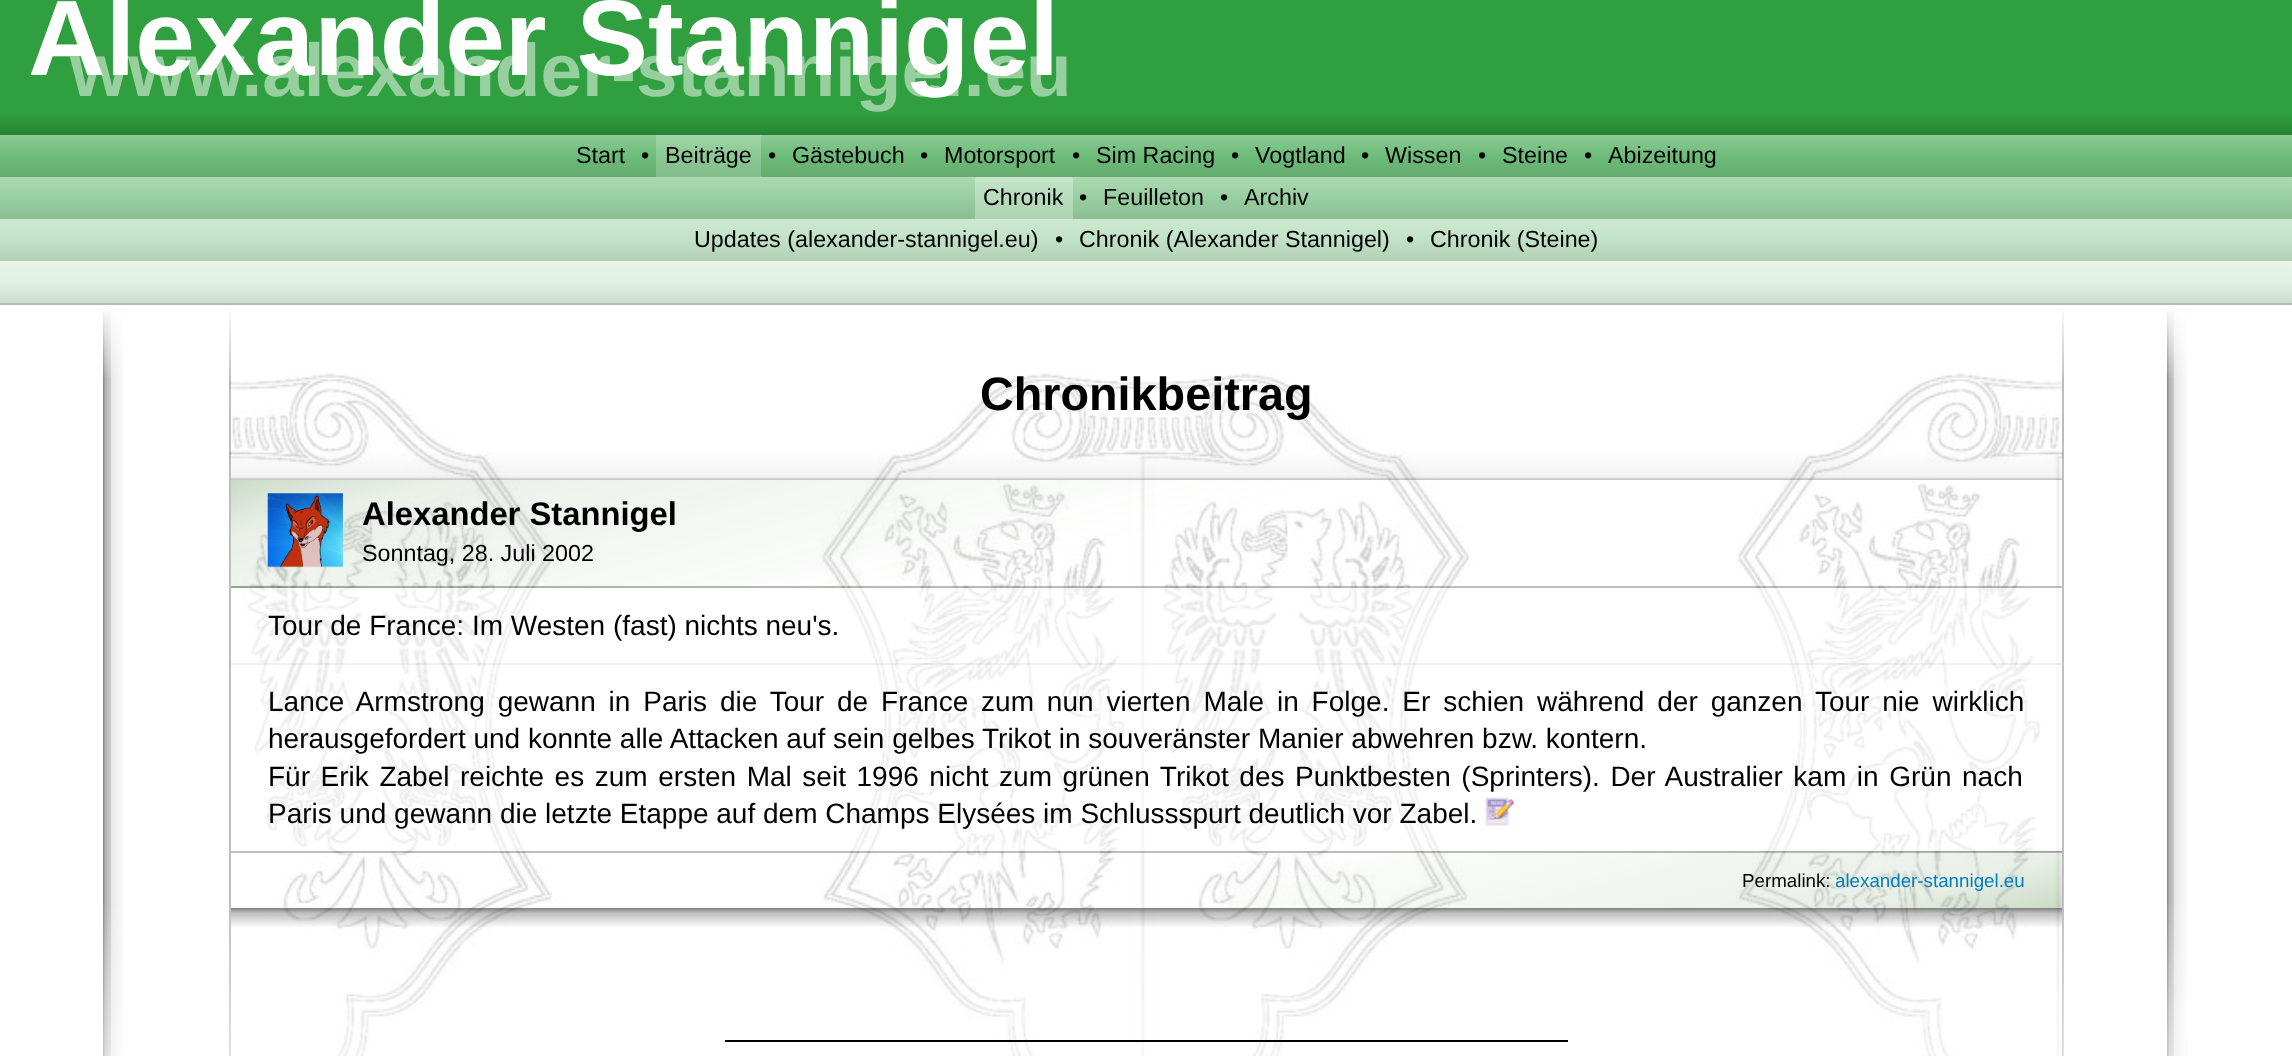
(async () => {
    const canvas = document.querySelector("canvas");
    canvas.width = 2292;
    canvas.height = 1056;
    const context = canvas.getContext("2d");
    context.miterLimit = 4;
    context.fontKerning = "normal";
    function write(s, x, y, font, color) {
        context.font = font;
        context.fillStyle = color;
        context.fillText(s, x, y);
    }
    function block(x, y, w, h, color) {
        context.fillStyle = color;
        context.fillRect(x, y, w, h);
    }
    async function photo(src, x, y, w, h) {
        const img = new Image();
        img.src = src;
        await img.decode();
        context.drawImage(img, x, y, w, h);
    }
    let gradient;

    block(0, 0, 2292, 1056, "rgb(255, 255, 255)");
    block(0, 0, 2292, 114, "rgb(47, 159, 63)");
    write("www.alexander-stannigel.eu", 70, 96, "bold 74.7px Liberation Sans", "rgb(151, 207, 159)");
    write("Alexander Stannigel", 28, 75, "bold 107.25px Liberation Sans", "rgb(255, 255, 255)");
    gradient = context.createLinearGradient(1146, 114, 1146, 135);
    gradient.addColorStop(0, "rgb(47, 159, 63)");
    gradient.addColorStop(0.95, "rgb(39, 134, 53)");
    gradient.addColorStop(1, "rgb(38, 127, 50)");
    context.fillStyle = gradient;
    context.fillRect(0, 114, 2292, 21);
    gradient = context.createLinearGradient(1146, 135, 1146, 156);
    gradient.addColorStop(0, "rgb(146, 205, 155)");
    gradient.addColorStop(0.05, "rgb(138, 201, 148)");
    gradient.addColorStop(1, "rgb(109, 188, 121)");
    context.fillStyle = gradient;
    context.fillRect(0, 135, 2292, 21);
    gradient = context.createLinearGradient(1146, 135, 1146, 156);
    gradient.addColorStop(0, "rgb(168, 215, 175)");
    gradient.addColorStop(0.05, "rgb(161, 212, 169)");
    gradient.addColorStop(1, "rgb(138, 201, 148)");
    context.fillStyle = gradient;
    context.fillRect(656, 135, 105, 21);
    gradient = context.createLinearGradient(1146, 156, 1146, 177);
    gradient.addColorStop(0, "rgb(109, 188, 121)");
    gradient.addColorStop(0.95, "rgb(100, 173, 111)");
    gradient.addColorStop(1, "rgb(98, 169, 109)");
    context.fillStyle = gradient;
    context.fillRect(0, 156, 2292, 21);
    write("Start", 576, 163, "23.3px Liberation Sans", "rgb(0, 0, 0)");
    write("•", 641, 163, "23.3px Liberation Sans", "rgb(0, 0, 0)");
    gradient = context.createLinearGradient(1146, 156, 1146, 177);
    gradient.addColorStop(0, "rgb(138, 201, 148)");
    gradient.addColorStop(0.95, "rgb(131, 189, 140)");
    gradient.addColorStop(1, "rgb(129, 186, 138)");
    context.fillStyle = gradient;
    context.fillRect(656, 156, 105, 21);
    write("Beiträge", 665, 163, "23.3px Liberation Sans", "rgb(0, 0, 0)");
    write("•", 768, 163, "23.3px Liberation Sans", "rgb(0, 0, 0)");
    write("Gästebuch", 792, 163, "23.3px Liberation Sans", "rgb(0, 0, 0)");
    write("•", 920, 163, "23.3px Liberation Sans", "rgb(0, 0, 0)");
    write("Motorsport", 944, 163, "23.3px Liberation Sans", "rgb(0, 0, 0)");
    write("•", 1072, 163, "23.3px Liberation Sans", "rgb(0, 0, 0)");
    write("Sim Racing", 1096, 163, "23.3px Liberation Sans", "rgb(0, 0, 0)");
    write("•", 1231, 163, "23.3px Liberation Sans", "rgb(0, 0, 0)");
    write("Vogtland", 1255, 163, "23.3px Liberation Sans", "rgb(0, 0, 0)");
    write("•", 1361, 163, "23.3px Liberation Sans", "rgb(0, 0, 0)");
    write("Wissen", 1385, 163, "23.3px Liberation Sans", "rgb(0, 0, 0)");
    write("•", 1478, 163, "23.3px Liberation Sans", "rgb(0, 0, 0)");
    write("Steine", 1502, 163, "23.3px Liberation Sans", "rgb(0, 0, 0)");
    write("•", 1584, 163, "23.3px Liberation Sans", "rgb(0, 0, 0)");
    write("Abizeitung", 1608, 163, "23.3px Liberation Sans", "rgb(0, 0, 0)");
    gradient = context.createLinearGradient(1146, 177, 1146, 198);
    gradient.addColorStop(0, "rgb(177, 219, 183)");
    gradient.addColorStop(0.05, "rgb(172, 217, 178)");
    gradient.addColorStop(1, "rgb(151, 207, 159)");
    context.fillStyle = gradient;
    context.fillRect(0, 177, 2292, 21);
    gradient = context.createLinearGradient(1146, 177, 1146, 198);
    gradient.addColorStop(0, "rgb(200, 230, 205)");
    gradient.addColorStop(0.05, "rgb(197, 228, 201)");
    gradient.addColorStop(1, "rgb(182, 221, 188)");
    context.fillStyle = gradient;
    context.fillRect(975, 177, 98, 21);
    gradient = context.createLinearGradient(1146, 198, 1146, 219);
    gradient.addColorStop(0, "rgb(151, 207, 159)");
    gradient.addColorStop(0.95, "rgb(139, 190, 146)");
    gradient.addColorStop(1, "rgb(136, 186, 143)");
    context.fillStyle = gradient;
    context.fillRect(0, 198, 2292, 21);
    gradient = context.createLinearGradient(1146, 198, 1146, 219);
    gradient.addColorStop(0, "rgb(182, 221, 188)");
    gradient.addColorStop(0.95, "rgb(174, 210, 179)");
    gradient.addColorStop(1, "rgb(172, 207, 177)");
    context.fillStyle = gradient;
    context.fillRect(975, 198, 98, 21);
    write("Chronik", 983, 205, "23.3px Liberation Sans", "rgb(0, 0, 0)");
    write("•", 1079, 205, "23.3px Liberation Sans", "rgb(0, 0, 0)");
    write("Feuilleton", 1103, 205, "23.3px Liberation Sans", "rgb(0, 0, 0)");
    write("•", 1220, 205, "23.3px Liberation Sans", "rgb(0, 0, 0)");
    write("Archiv", 1244, 205, "23.3px Liberation Sans", "rgb(0, 0, 0)");
    gradient = context.createLinearGradient(1146, 219, 1146, 240);
    gradient.addColorStop(0, "rgb(209, 233, 212)");
    gradient.addColorStop(0.05, "rgb(205, 232, 209)");
    gradient.addColorStop(1, "rgb(193, 226, 198)");
    context.fillStyle = gradient;
    context.fillRect(0, 219, 2292, 21);
    gradient = context.createLinearGradient(1146, 240, 1146, 261);
    gradient.addColorStop(0, "rgb(193, 226, 198)");
    gradient.addColorStop(0.95, "rgb(178, 208, 182)");
    gradient.addColorStop(1, "rgb(174, 203, 178)");
    context.fillStyle = gradient;
    context.fillRect(0, 240, 2292, 21);
    write("Updates (alexander-stannigel.eu)", 694, 247, "23.3px Liberation Sans", "rgb(0, 0, 0)");
    write("•", 1055, 247, "23.3px Liberation Sans", "rgb(0, 0, 0)");
    write("Chronik (Alexander Stannigel)", 1079, 247, "23.3px Liberation Sans", "rgb(0, 0, 0)");
    write("•", 1406, 247, "23.3px Liberation Sans", "rgb(0, 0, 0)");
    write("Chronik (Steine)", 1430, 247, "23.3px Liberation Sans", "rgb(0, 0, 0)");
    block(0, 303, 2292, 2, "rgb(175, 191, 175)");
    gradient = context.createLinearGradient(1146, 261, 1146, 282);
    gradient.addColorStop(0, "rgb(232, 245, 233)");
    gradient.addColorStop(0.05, "rgb(230, 244, 232)");
    gradient.addColorStop(1, "rgb(224, 241, 226)");
    context.fillStyle = gradient;
    context.fillRect(0, 261, 2292, 21);
    gradient = context.createLinearGradient(1146, 282, 1146, 303);
    gradient.addColorStop(0, "rgb(224, 241, 226)");
    gradient.addColorStop(0.95, "rgb(206, 222, 208)");
    gradient.addColorStop(1, "rgb(202, 217, 203)");
    context.fillStyle = gradient;
    context.fillRect(0, 282, 2292, 21);
    gradient = context.createLinearGradient(103, 750, 126, 750);
    gradient.addColorStop(0, "rgb(128, 128, 128)");
    gradient.addColorStop(0.1, "rgb(179, 179, 179)");
    gradient.addColorStop(0.33, "rgb(204, 204, 204)");
    gradient.addColorStop(0.33, "rgb(230, 230, 230)");
    gradient.addColorStop(1, "rgb(255, 255, 255)");
    context.fillStyle = gradient;
    context.fillRect(103, 305, 21, 751);
    await photo("media/1.png", 229, 373, 1835, 683);
    block(2062, 305, 2, 751, "rgba(0, 0, 0, 0.25)");
    block(229, 305, 2, 751, "rgba(0, 0, 0, 0.25)");
    gradient = context.createLinearGradient(2167, 750, 2189, 750);
    gradient.addColorStop(0, "rgb(128, 128, 128)");
    gradient.addColorStop(0.1, "rgb(179, 179, 179)");
    gradient.addColorStop(0.33, "rgb(204, 204, 204)");
    gradient.addColorStop(0.33, "rgb(230, 230, 230)");
    gradient.addColorStop(1, "rgb(255, 255, 255)");
    context.fillStyle = gradient;
    context.fillRect(2167, 305, 21, 751);
    gradient = context.createLinearGradient(1146, 304, 1146, 380);
    gradient.addColorStop(0, "rgb(255, 255, 255)");
    gradient.addColorStop(1, "rgba(255, 255, 255, 0)");
    context.fillStyle = gradient;
    context.fillRect(103, 305, 2085, 73);
    write("Chronikbeitrag", 980, 410, "bold 46.75px Liberation Sans", "rgb(0, 0, 0)");
    block(231, 586, 1831, 2, "rgba(0, 0, 0, 0.25)");
    await photo("media/2.png", 267, 493, 76, 75);
    write("Alexander Stannigel", 362, 525, "bold 32.75px Liberation Sans", "rgb(0, 0, 0)");
    write("Sonntag, 28. Juli 2002", 362, 561, "23.3px Liberation Sans", "rgb(0, 0, 0)");
    block(246, 588, 1814, 263, "rgba(255, 255, 255, 0.5)");
    write("Tour de France: Im Westen (fast) nichts neu's.", 268, 635, "28px Liberation Sans", "rgb(0, 0, 0)");
    block(231, 663, 1831, 2, "rgba(0, 0, 0, 0.05)");
    context.wordSpacing = "5.1px";
    write("Lance Armstrong gewann in Paris die Tour de France zum nun vierten Male in Folge. Er schien während der ganzen Tour nie wirklich", 268, 711, "28px Liberation Sans", "rgb(0, 0, 0)");
    context.wordSpacing = "0px";
    write("herausgefordert und konnte alle Attacken auf sein gelbes Trikot in souveränster Manier abwehren bzw. kontern.", 268, 748, "28px Liberation Sans", "rgb(0, 0, 0)");
    context.wordSpacing = "2.8px";
    write("Für Erik Zabel reichte es zum ersten Mal seit 1996 nicht zum grünen Trikot des Punktbesten (Sprinters). Der Australier kam in Grün nach", 268, 786, "28px Liberation Sans", "rgb(0, 0, 0)");
    context.wordSpacing = "0px";
    write("Paris und gewann die letzte Etappe auf dem Champs Elysées im Schlussspurt deutlich vor Zabel.", 268, 823, "28px Liberation Sans", "rgb(0, 0, 0)");
    await photo("media/3.png", 1485, 797, 29, 29);
    gradient = context.createLinearGradient(1146, 898, 1146, 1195);
    gradient.addColorStop(0, "rgba(255, 255, 255, 0)");
    gradient.addColorStop(1, "rgb(255, 255, 255)");
    context.fillStyle = gradient;
    context.fillRect(103, 904, 2083, 152);
    gradient = context.createLinearGradient(1078, 625, 1215, 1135);
    gradient.addColorStop(0.5, "rgba(47, 111, 31, 0)");
    gradient.addColorStop(0.9, "rgba(47, 111, 31, 0.1)");
    gradient.addColorStop(1, "rgba(47, 111, 31, 0.25)");
    context.fillStyle = gradient;
    context.fillRect(1220, 852, 842, 56);
    block(231, 851, 1831, 2, "rgba(0, 0, 0, 0.25)");
    write("Permalink:", 1742, 887, "18.75px Liberation Sans", "rgb(0, 0, 0)");
    write("alexander-stannigel.eu", 1835, 887, "18.75px Liberation Sans", "rgb(0, 127, 191)");
    gradient = context.createLinearGradient(1146, 908, 1146, 928);
    gradient.addColorStop(0, "rgba(0, 0, 0, 0.5)");
    gradient.addColorStop(0.25, "rgba(0, 0, 0, 0.25)");
    gradient.addColorStop(1, "rgba(0, 0, 0, 0)");
    context.fillStyle = gradient;
    context.fillRect(231, 908, 1831, 19);
    block(725, 1040, 843, 2, "rgb(0, 0, 0)");
})();
